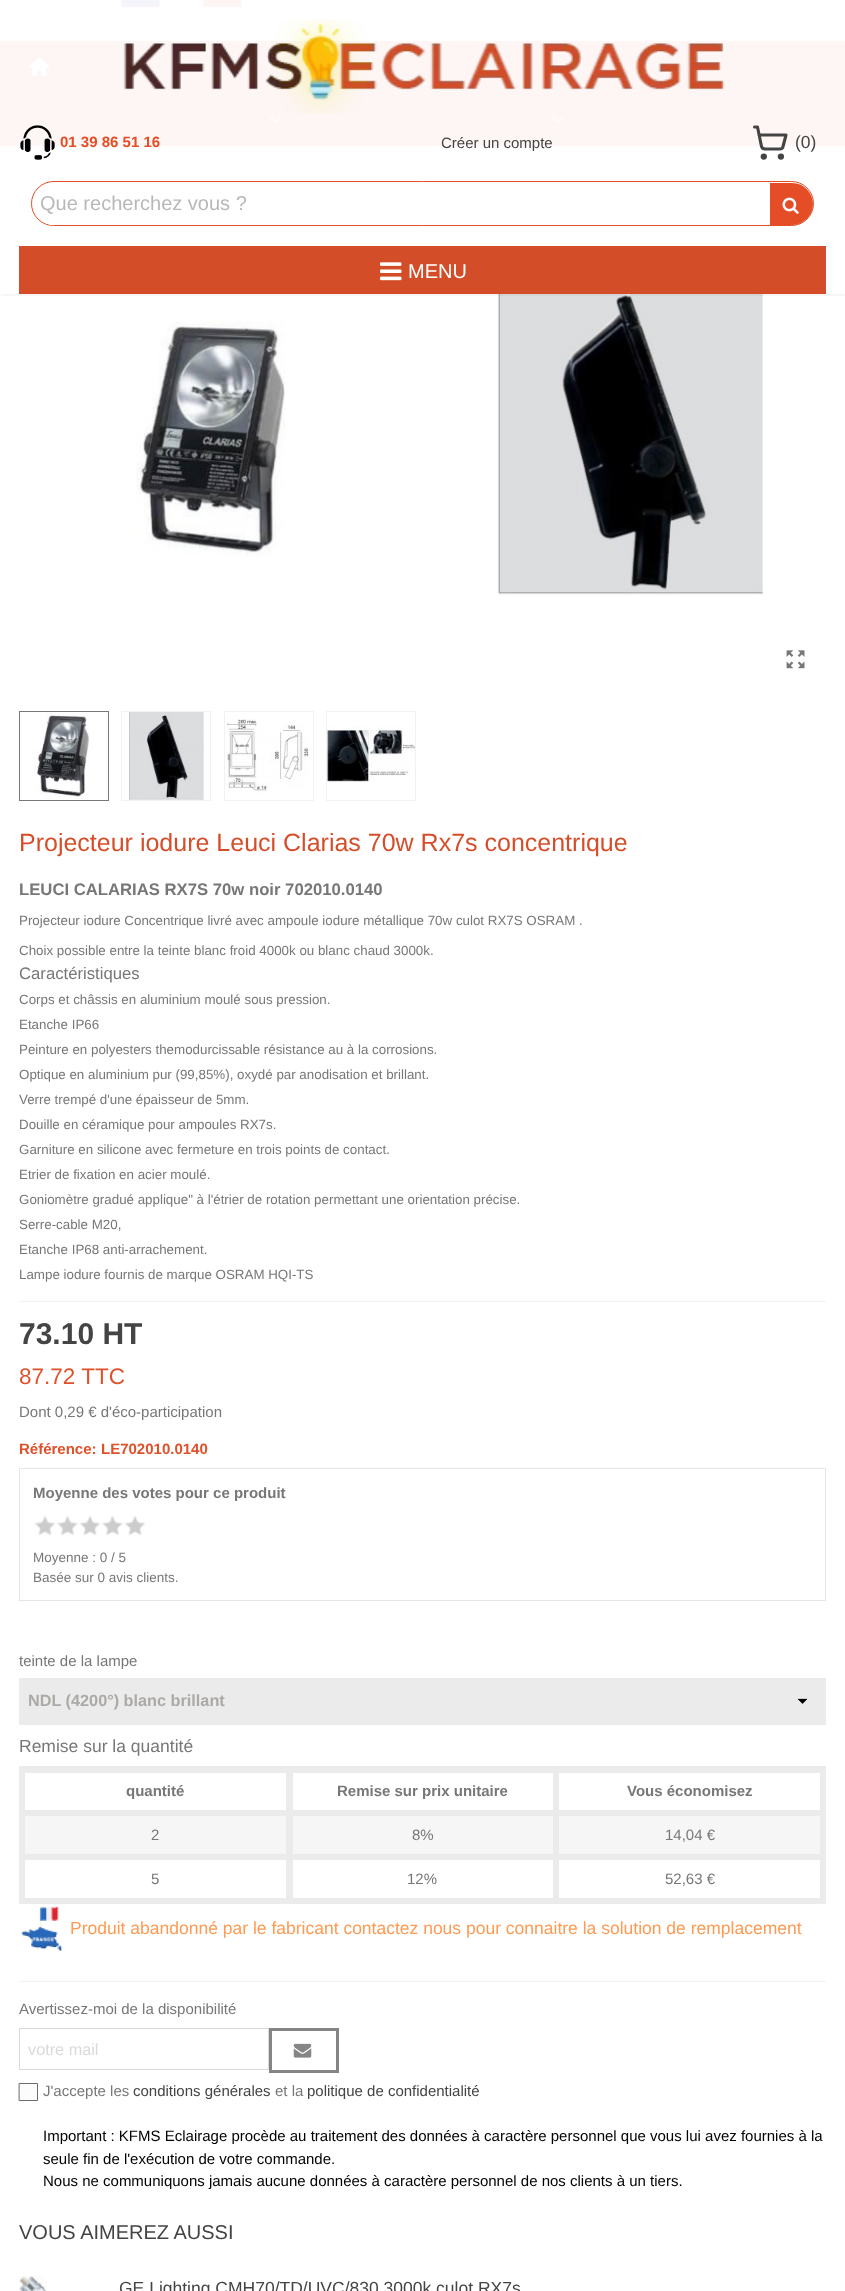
(async () => {
    const canvas = document.querySelector("canvas");
    canvas.width = 845;
    canvas.height = 2291;
    const context = canvas.getContext("2d");
    context.miterLimit = 4;
    context.fontKerning = "normal";
    function write(s, x, y, font, color) {
        context.font = font;
        context.fillStyle = color;
        context.fillText(s, x, y);
    }
    function block(x, y, w, h, color) {
        context.fillStyle = color;
        context.fillRect(x, y, w, h);
    }
    async function photo(src, x, y, w, h) {
        const img = new Image();
        img.src = src;
        await img.decode();
        context.drawImage(img, x, y, w, h);
    }

    block(0, 0, 845, 2291, "rgb(255, 255, 255)");
    await photo("media/1.png", 118, 0, 124, 8);
    block(0, 41, 845, 105, "rgb(211, 77, 41)");
    await photo("media/2.png", 28, 57, 22, 20);
    await photo("media/3.png", 188, 64, 12, 1);
    await photo("media/4.png", 353, 69, 4, 2);
    await photo("media/5.png", 696, 69, 4, 2);
    await photo("media/6.png", 269, 116, 12, 7);
    await photo("media/7.png", 552, 116, 12, 7);
    block(0, 218, 845, 1, "rgb(242, 242, 242)");
    await photo("media/13.png", 497, 294, 266, 301);
    context.save();
    context.beginPath();
    context.rect(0, 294, 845, 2);
    context.clip();
    context.fillStyle = "rgba(0, 0, 0, 0.1)";
    context.filter = "blur(2.5px)";
    context.beginPath();
    context.rect(0, 0, 845, 294);
    context.fill();
    context.filter = "none";
    context.restore();
    block(0, 0, 845, 294, "rgba(255, 255, 255, 0.95)");
    await photo("media/8.png", 123, 20, 602, 94);
    await photo("media/9.png", 20, 125, 35, 35);
    write("01 39 86 51 16", 60, 147, "bold 15px Liberation Sans", "rgb(229, 77, 38)");
    write("Créer un compte", 441, 148, "15px Liberation Sans", "rgb(68, 68, 68)");
    context.beginPath();
    context.arc(763.8, 156.6, 1.6, 0, Math.PI * 2);
    context.strokeStyle = "rgb(68, 68, 68)";
    context.lineWidth = 3.1;
    context.stroke();
    context.beginPath();
    context.arc(780.9, 156.6, 1.6, 0, Math.PI * 2);
    context.stroke();
    context.beginPath();
    context.moveTo(754.5, 127);
    context.lineTo(757.5, 127);
    context.lineTo(761.5, 146.5);
    context.bezierCurveTo(762, 148, 763.5, 149, 765, 149);
    context.lineTo(780, 149);
    context.bezierCurveTo(781.5, 149, 783, 148, 783, 146.5);
    context.lineTo(786, 135);
    context.lineTo(759, 135);
    context.lineCap = "round";
    context.lineJoin = "round";
    context.stroke();
    write("(0)", 795, 148, "17.5px Liberation Sans", "rgb(68, 68, 68)");
    context.beginPath();
    context.roundRect(31.5, 181.5, 782, 44, 22);
    context.strokeStyle = "rgb(229, 77, 38)";
    context.lineWidth = 1;
    context.lineJoin = "miter";
    context.stroke();
    context.fillStyle = "rgb(255, 255, 255)";
    context.beginPath();
    context.roundRect(33, 183, 738, 42, [21, 0, 0, 21]);
    context.fill();
    write("Que recherchez vous ?", 40, 210, "20px Liberation Sans", "rgb(185, 184, 184)");
    context.fillStyle = "rgb(229, 77, 38)";
    context.beginPath();
    context.roundRect(770, 183, 43, 42, [0, 21, 21, 0]);
    context.fill();
    await photo("media/10.png", 782, 197, 17, 17);
    block(19, 246, 807, 48, "rgb(211, 77, 41)");
    await photo("media/11.png", 380, 262, 22, 19);
    write("MENU", 408, 278, "20px Liberation Sans", "rgb(255, 255, 255)");
    await photo("media/12.png", 136, 321, 149, 235);
    await photo("media/14.png", 786, 650, 19, 19);
    context.strokeStyle = "rgb(119, 119, 119)";
    context.strokeRect(19.5, 711.5, 89, 89);
    await photo("media/15.png", 34, 713, 56, 87);
    context.strokeStyle = "rgb(242, 242, 242)";
    context.strokeRect(121.5, 711.5, 89, 89);
    await photo("media/16.png", 129, 712, 75, 88);
    context.strokeRect(224.5, 711.5, 89, 89);
    await photo("media/17.png", 225, 719, 84, 74);
    context.strokeRect(326.5, 711.5, 89, 89);
    await photo("media/18.png", 327, 726, 88, 56);
    write("Projecteur iodure Leuci Clarias 70w Rx7s concentrique", 19, 851, "25px Liberation Sans", "rgb(214, 78, 41)");
    write("LEUCI CALARIAS RX7S 70w noir 702010.0140", 19, 895, "bold 16.7px Liberation Sans", "rgb(119, 119, 119)");
    write("Projecteur iodure Concentrique livré avec ampoule iodure métallique 70w culot RX7S OSRAM .", 19, 925, "13.35px Liberation Sans", "rgb(119, 119, 119)");
    write("Choix possible entre la teinte blanc froid 4000k ou blanc chaud 3000k.", 19, 955, "13.35px Liberation Sans", "rgb(119, 119, 119)");
    write("Caractéristiques", 19, 979, "16.7px Liberation Sans", "rgb(119, 119, 119)");
    write("Corps et châssis en aluminium moulé sous pression.", 19, 1004, "13.35px Liberation Sans", "rgb(119, 119, 119)");
    write("Etanche IP66", 19, 1029, "13.35px Liberation Sans", "rgb(119, 119, 119)");
    write("Peinture en polyesters themodurcissable résistance au à la corrosions.", 19, 1054, "13.35px Liberation Sans", "rgb(119, 119, 119)");
    write("Optique en aluminium pur (99,85%), oxydé par anodisation et brillant.", 19, 1079, "13.35px Liberation Sans", "rgb(119, 119, 119)");
    write("Verre trempé d'une épaisseur de 5mm.", 19, 1104, "13.35px Liberation Sans", "rgb(119, 119, 119)");
    write("Douille en céramique pour ampoules RX7s.", 19, 1129, "13.35px Liberation Sans", "rgb(119, 119, 119)");
    write("Garniture en silicone avec fermeture en trois points de contact.", 19, 1154, "13.35px Liberation Sans", "rgb(119, 119, 119)");
    write("Etrier de fixation en acier moulé.", 19, 1179, "13.35px Liberation Sans", "rgb(119, 119, 119)");
    write("Goniomètre gradué applique\" à l'étrier de rotation permettant une orientation précise.", 19, 1204, "13.35px Liberation Sans", "rgb(119, 119, 119)");
    write("Serre-cable M20,", 19, 1229, "13.35px Liberation Sans", "rgb(119, 119, 119)");
    write("Etanche IP68 anti-arrachement.", 19, 1254, "13.35px Liberation Sans", "rgb(119, 119, 119)");
    write("Lampe iodure fournis de marque OSRAM HQI-TS", 19, 1279, "13.35px Liberation Sans", "rgb(119, 119, 119)");
    block(19, 1301, 807, 1, "rgb(242, 242, 242)");
    write("73.10 HT", 19, 1344, "bold 30px Liberation Sans", "rgb(68, 68, 68)");
    write("87.72 TTC", 19, 1384, "22.5px Liberation Sans", "rgb(223, 81, 43)");
    write("Dont 0,29 € d'éco-participation", 19, 1417, "15px Liberation Sans", "rgb(119, 119, 119)");
    write("Référence:", 19, 1454, "bold 15px Liberation Sans", "rgb(223, 81, 43)");
    write("LE702010.0140", 101, 1454, "bold 15px Liberation Sans", "rgb(223, 81, 43)");
    context.strokeStyle = "rgb(230, 230, 230)";
    context.strokeRect(19.5, 1468.5, 806, 132);
    write("Moyenne des votes pour ce produit", 33, 1498, "bold 15px Liberation Sans", "rgb(119, 119, 119)");
    await photo("media/19.png", 34, 1515, 21, 21);
    await photo("media/20.png", 56, 1515, 22, 21);
    await photo("media/21.png", 79, 1515, 21, 21);
    await photo("media/20.png", 101, 1515, 22, 21);
    await photo("media/19.png", 124, 1515, 21, 21);
    write("Moyenne : 0 / 5", 33, 1562, "13.5px Liberation Sans", "rgb(119, 119, 119)");
    write("Basée sur 0 avis clients.", 33, 1582, "13.5px Liberation Sans", "rgb(119, 119, 119)");
    write("teinte de la lampe", 19, 1666, "15px Liberation Sans", "rgb(119, 119, 119)");
    block(19, 1678, 807, 47, "rgb(235, 235, 235)");
    await photo("media/22.png", 797, 1698, 11, 6);
    write("NDL (4200°) blanc brillant", 28, 1706, "bold 16.25px Liberation Sans", "rgb(172, 170, 166)");
    write("Remise sur la quantité", 19, 1752, "17.5px Liberation Sans", "rgb(119, 119, 119)");
    block(553, 1766, 273, 7, "rgb(235, 235, 235)");
    block(553, 1810, 273, 6, "rgb(235, 235, 235)");
    block(25, 1816, 795, 38, "rgb(246, 246, 246)");
    block(553, 1854, 273, 6, "rgb(235, 235, 235)");
    block(820, 1854, 6, 50, "rgb(235, 235, 235)");
    block(553, 1898, 273, 6, "rgb(235, 235, 235)");
    block(553, 1854, 6, 50, "rgb(235, 235, 235)");
    block(286, 1854, 273, 6, "rgb(235, 235, 235)");
    block(553, 1810, 6, 50, "rgb(235, 235, 235)");
    block(286, 1810, 273, 6, "rgb(235, 235, 235)");
    block(553, 1766, 6, 50, "rgb(235, 235, 235)");
    block(286, 1766, 273, 7, "rgb(235, 235, 235)");
    block(286, 1898, 273, 6, "rgb(235, 235, 235)");
    block(286, 1854, 7, 50, "rgb(235, 235, 235)");
    block(19, 1854, 274, 6, "rgb(235, 235, 235)");
    block(286, 1810, 7, 50, "rgb(235, 235, 235)");
    block(19, 1810, 274, 6, "rgb(235, 235, 235)");
    block(286, 1766, 7, 50, "rgb(235, 235, 235)");
    block(19, 1766, 274, 7, "rgb(235, 235, 235)");
    block(19, 1898, 274, 6, "rgb(235, 235, 235)");
    block(19, 1854, 6, 50, "rgb(235, 235, 235)");
    block(19, 1810, 6, 50, "rgb(235, 235, 235)");
    block(19, 1766, 6, 50, "rgb(235, 235, 235)");
    write("quantité", 126, 1796, "bold 15px Liberation Sans", "rgb(119, 119, 119)");
    write("Remise sur prix unitaire", 337, 1796, "bold 15px Liberation Sans", "rgb(119, 119, 119)");
    block(820, 1810, 6, 50, "rgb(235, 235, 235)");
    block(820, 1766, 6, 50, "rgb(235, 235, 235)");
    write("Vous économisez", 627, 1796, "bold 15px Liberation Sans", "rgb(119, 119, 119)");
    write("2", 151, 1840, "15px Liberation Sans", "rgb(119, 119, 119)");
    write("8%", 412, 1840, "15px Liberation Sans", "rgb(119, 119, 119)");
    write("14,04 €", 665, 1840, "15px Liberation Sans", "rgb(119, 119, 119)");
    write("5", 151, 1884, "15px Liberation Sans", "rgb(119, 119, 119)");
    write("12%", 407, 1884, "15px Liberation Sans", "rgb(119, 119, 119)");
    write("52,63 €", 665, 1884, "15px Liberation Sans", "rgb(119, 119, 119)");
    await photo("media/23.png", 21, 1906, 42, 45);
    write("Produit abandonné par le fabricant contactez nous pour connaitre la solution de remplacement", 70, 1934, "17.5px Liberation Sans", "rgb(255, 154, 82)");
    block(19, 1981, 807, 1, "rgb(242, 242, 242)");
    write("Avertissez-moi de la disponibilité", 19, 2014, "15px Liberation Sans", "rgb(119, 119, 119)");
    context.strokeStyle = "rgb(217, 217, 217)";
    context.strokeRect(19.5, 2028.5, 249, 41);
    write("votre mail", 28, 2055, "16.25px Liberation Sans", "rgb(218, 218, 218)");
    context.strokeStyle = "rgb(133, 133, 133)";
    context.lineWidth = 3;
    context.strokeRect(270.5, 2029.5, 67, 42);
    await photo("media/24.png", 293, 2043, 19, 15);
    context.fillStyle = "rgb(252, 252, 252)";
    context.beginPath();
    context.rect(19.5, 2083.5, 18, 17);
    context.fill();
    context.strokeStyle = "rgb(108, 106, 106)";
    context.lineWidth = 1;
    context.stroke();
    write("J'accepte les", 43, 2096, "15px Liberation Sans", "rgb(119, 119, 119)");
    write("conditions générales", 133, 2096, "15px Liberation Sans", "rgb(68, 68, 68)");
    write("et la", 275, 2096, "15px Liberation Sans", "rgb(119, 119, 119)");
    write("politique de confidentialité", 307, 2096, "15px Liberation Sans", "rgb(68, 68, 68)");
    write("Important : KFMS Eclairage procède au traitement des données à caractère personnel que vous lui avez fournies à la", 43, 2141, "15px Liberation Sans", "rgb(0, 0, 0)");
    write("seule fin de l'exécution de votre commande.", 43, 2164, "15px Liberation Sans", "rgb(0, 0, 0)");
    write("Nous ne communiquons jamais aucune données à caractère personnel de nos clients à un tiers.", 43, 2186, "15px Liberation Sans", "rgb(0, 0, 0)");
    write("VOUS AIMEREZ AUSSI", 19, 2239, "20px Liberation Sans", "rgb(68, 68, 68)");
    await photo("media/25.png", 19, 2276, 28, 15);
    write("GE Lighting CMH70/TD/UVC/830 3000k culot RX7s", 119, 2294, "17.5px Liberation Sans", "rgb(68, 68, 68)");
})();
